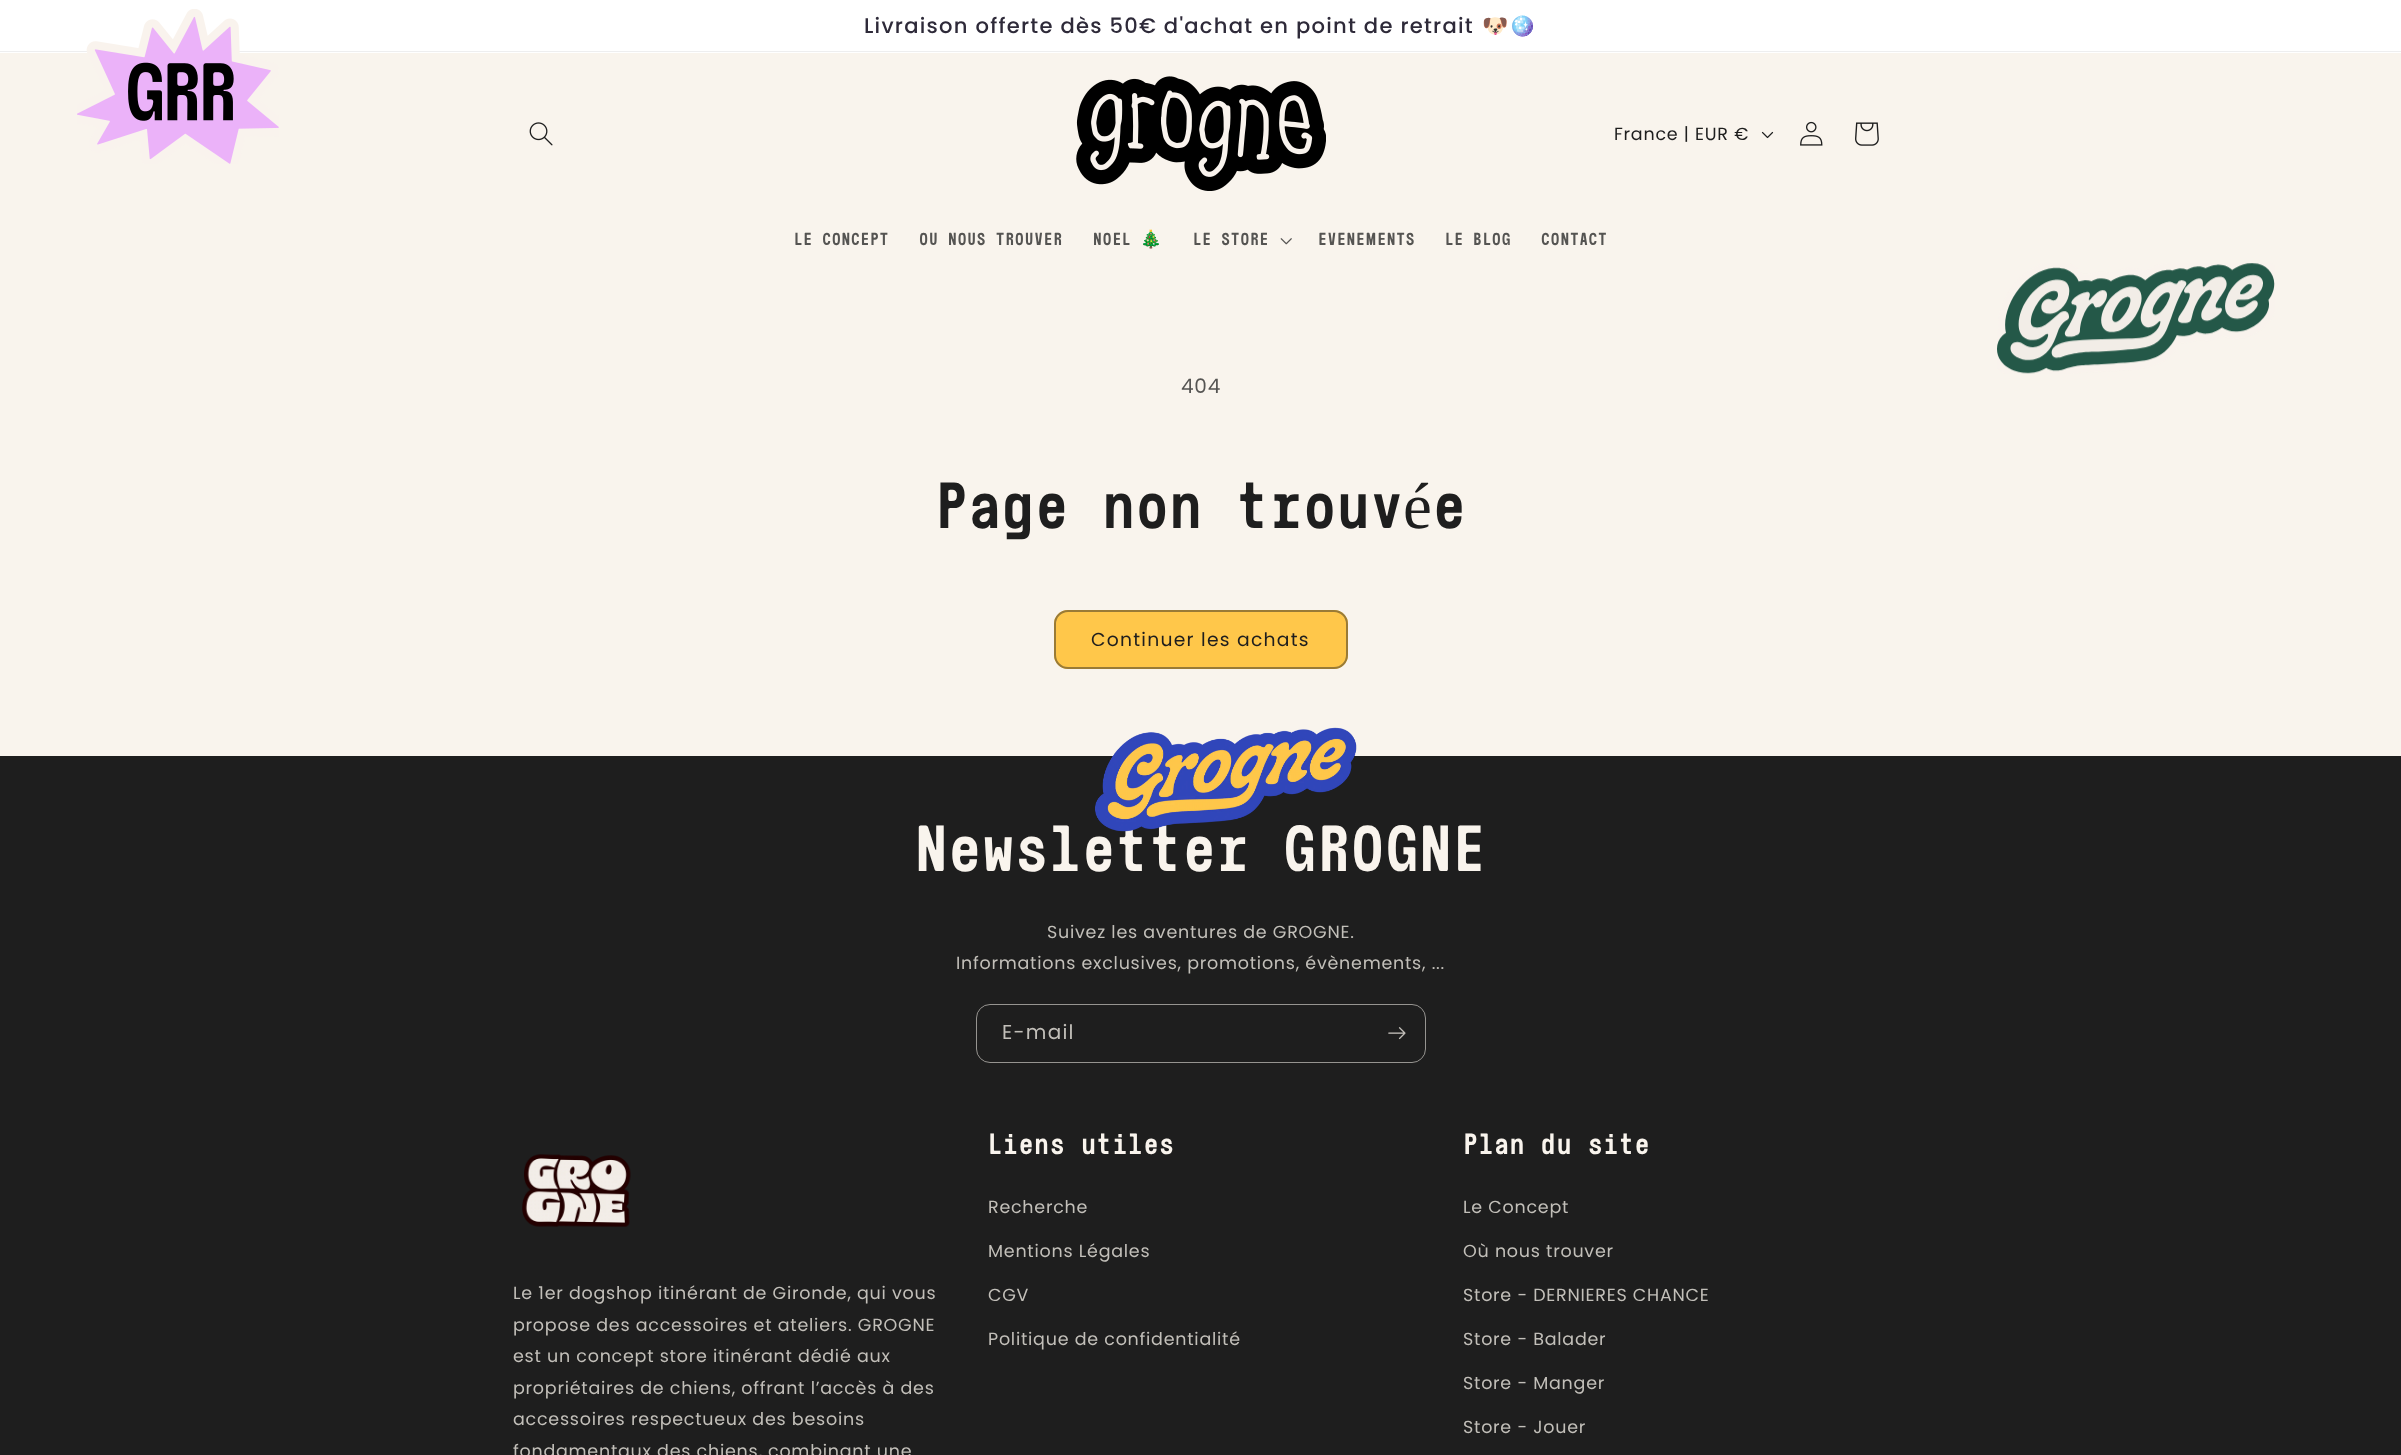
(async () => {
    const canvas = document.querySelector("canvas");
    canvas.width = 2401;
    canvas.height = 1455;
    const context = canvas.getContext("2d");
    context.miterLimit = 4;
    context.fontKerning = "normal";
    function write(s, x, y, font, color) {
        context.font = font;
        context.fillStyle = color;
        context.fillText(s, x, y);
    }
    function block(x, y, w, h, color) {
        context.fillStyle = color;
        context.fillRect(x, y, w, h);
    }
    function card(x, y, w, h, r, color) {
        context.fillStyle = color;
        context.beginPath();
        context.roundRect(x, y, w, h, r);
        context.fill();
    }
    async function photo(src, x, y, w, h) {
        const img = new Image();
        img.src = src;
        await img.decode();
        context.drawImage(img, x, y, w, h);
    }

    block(0, 0, 2401, 1455, "rgb(249, 244, 237)");
    block(0, 0, 2401, 53, "rgb(255, 255, 255)");
    block(0, 51, 2401, 1, "rgb(238, 238, 239)");
    await photo("media/1.png", 77, 9, 202, 155);
    context.letterSpacing = "1.25px";
    write("Livraison offerte dès 50€ d'achat en point de retrait", 864, 33, "500 21.1px Poppins", "rgb(46, 42, 57)");
    write("🐶🪩", 1482, 33, "21.1px Noto Color Emoji", "rgb(46, 42, 57)");
    await photo("media/2.png", 529, 122, 24, 24);
    await photo("media/3.png", 1076, 76, 250, 115);
    context.letterSpacing = "0.75px";
    write("France | EUR €", 1614, 140, "17.5px Poppins", "rgb(30, 30, 30)");
    await photo("media/4.png", 1761, 131, 13, 8);
    await photo("media/5.png", 1800, 121, 23, 25);
    await photo("media/6.png", 1855, 122, 24, 24);
    write("LE CONCEPT", 794, 245, "17.5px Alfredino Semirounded", "rgb(85, 84, 82)");
    write("OU NOUS TROUVER", 919, 245, "17.5px Alfredino Semirounded", "rgb(85, 84, 82)");
    write("NOEL", 1093, 245, "17.5px Alfredino Semirounded", "rgb(85, 84, 82)");
    write("🎄", 1140, 245, "17.5px Noto Color Emoji", "rgb(85, 84, 82)");
    write("LE STORE", 1193, 245, "17.5px Alfredino Semirounded", "rgb(85, 84, 82)");
    await photo("media/7.png", 1280, 238, 12, 7);
    write("EVENEMENTS", 1318, 245, "17.5px Alfredino Semirounded", "rgb(85, 84, 82)");
    write("LE BLOG", 1445, 245, "17.5px Alfredino Semirounded", "rgb(85, 84, 82)");
    write("CONTACT", 1541, 245, "17.5px Alfredino Semirounded", "rgb(85, 84, 82)");
    await photo("media/8.png", 1997, 263, 278, 111);
    write("404", 1181, 393, "20px Poppins", "rgb(85, 84, 82)");
    context.letterSpacing = "1px";
    write("Page non trouv", 935, 528, "65px Alfredino Semirounded", "rgb(30, 30, 30)");
    write("é", 1403, 528, "65px Liberation Serif", "rgb(30, 30, 30)");
    write("e", 1433, 528, "65px Alfredino Semirounded", "rgb(30, 30, 30)");
    card(1054, 610, 294, 59, 14, "rgb(255, 199, 74)");
    context.beginPath();
    context.roundRect(1054.5, 610.5, 293, 58, 13.5);
    context.strokeStyle = "rgb(255, 199, 74)";
    context.stroke();
    context.beginPath();
    context.roundRect(1055, 611, 292, 57, 13);
    context.strokeStyle = "rgba(30, 30, 30, 0.45)";
    context.lineWidth = 2;
    context.stroke();
    context.letterSpacing = "1.25px";
    write("Continuer les achats", 1091, 646, "18.75px Poppins", "rgb(30, 30, 30)");
    block(0, 756, 2401, 699, "rgb(30, 30, 30)");
    context.letterSpacing = "1px";
    write("Newsletter GROGNE", 915, 871, "65px Alfredino Semirounded", "rgb(249, 244, 237)");
    await photo("media/9.png", 1095, 727, 262, 105);
    context.letterSpacing = "0.75px";
    write("Suivez les aventures de GROGNE.", 1047, 938, "17.5px Poppins", "rgb(194, 191, 185)");
    write("Informations exclusives, promotions, évènements, ...", 956, 969, "17.5px Poppins", "rgb(194, 191, 185)");
    context.beginPath();
    context.roundRect(976.5, 1004.5, 449, 58, 13.5);
    context.strokeStyle = "rgb(150, 148, 144)";
    context.lineWidth = 1;
    context.stroke();
    context.letterSpacing = "1.25px";
    write("E-mail", 1002, 1039, "20px Poppins", "rgb(194, 191, 185)");
    await photo("media/10.png", 1388, 1027, 18, 13);
    await photo("media/11.png", 522, 1154, 109, 73);
    context.letterSpacing = "0.75px";
    write("Le 1er dogshop itinérant de Gironde, qui vous", 513, 1299, "17.5px Poppins", "rgb(194, 191, 185)");
    write("propose des accessoires et ateliers. GROGNE", 513, 1331, "17.5px Poppins", "rgb(194, 191, 185)");
    write("est un concept store itinérant dédié aux", 513, 1362, "17.5px Poppins", "rgb(194, 191, 185)");
    write("propriétaires de chiens, offrant l’accès à des", 513, 1394, "17.5px Poppins", "rgb(194, 191, 185)");
    write("accessoires respectueux des besoins", 513, 1425, "17.5px Poppins", "rgb(194, 191, 185)");
    write("fondamentaux des chiens, combinant une", 513, 1457, "17.5px Poppins", "rgb(194, 191, 185)");
    context.letterSpacing = "1px";
    write("Liens utiles", 988, 1154, "29.25px Alfredino Semirounded", "rgb(249, 244, 237)");
    context.letterSpacing = "0.75px";
    write("Recherche", 988, 1213, "17.5px Poppins", "rgb(194, 191, 185)");
    write("Mentions Légales", 988, 1257, "17.5px Poppins", "rgb(194, 191, 185)");
    write("CGV", 988, 1301, "17.5px Poppins", "rgb(194, 191, 185)");
    write("Politique de confidentialité", 988, 1345, "17.5px Poppins", "rgb(194, 191, 185)");
    context.letterSpacing = "1px";
    write("Plan du site", 1463, 1154, "29.25px Alfredino Semirounded", "rgb(249, 244, 237)");
    context.letterSpacing = "0.75px";
    write("Le Concept", 1463, 1213, "17.5px Poppins", "rgb(194, 191, 185)");
    write("Où nous trouver", 1463, 1257, "17.5px Poppins", "rgb(194, 191, 185)");
    write("Store - DERNIERES CHANCE", 1463, 1301, "17.5px Poppins", "rgb(194, 191, 185)");
    write("Store - Balader", 1463, 1345, "17.5px Poppins", "rgb(194, 191, 185)");
    write("Store - Manger", 1463, 1389, "17.5px Poppins", "rgb(194, 191, 185)");
    write("Store - Jouer", 1463, 1433, "17.5px Poppins", "rgb(194, 191, 185)");
})();
